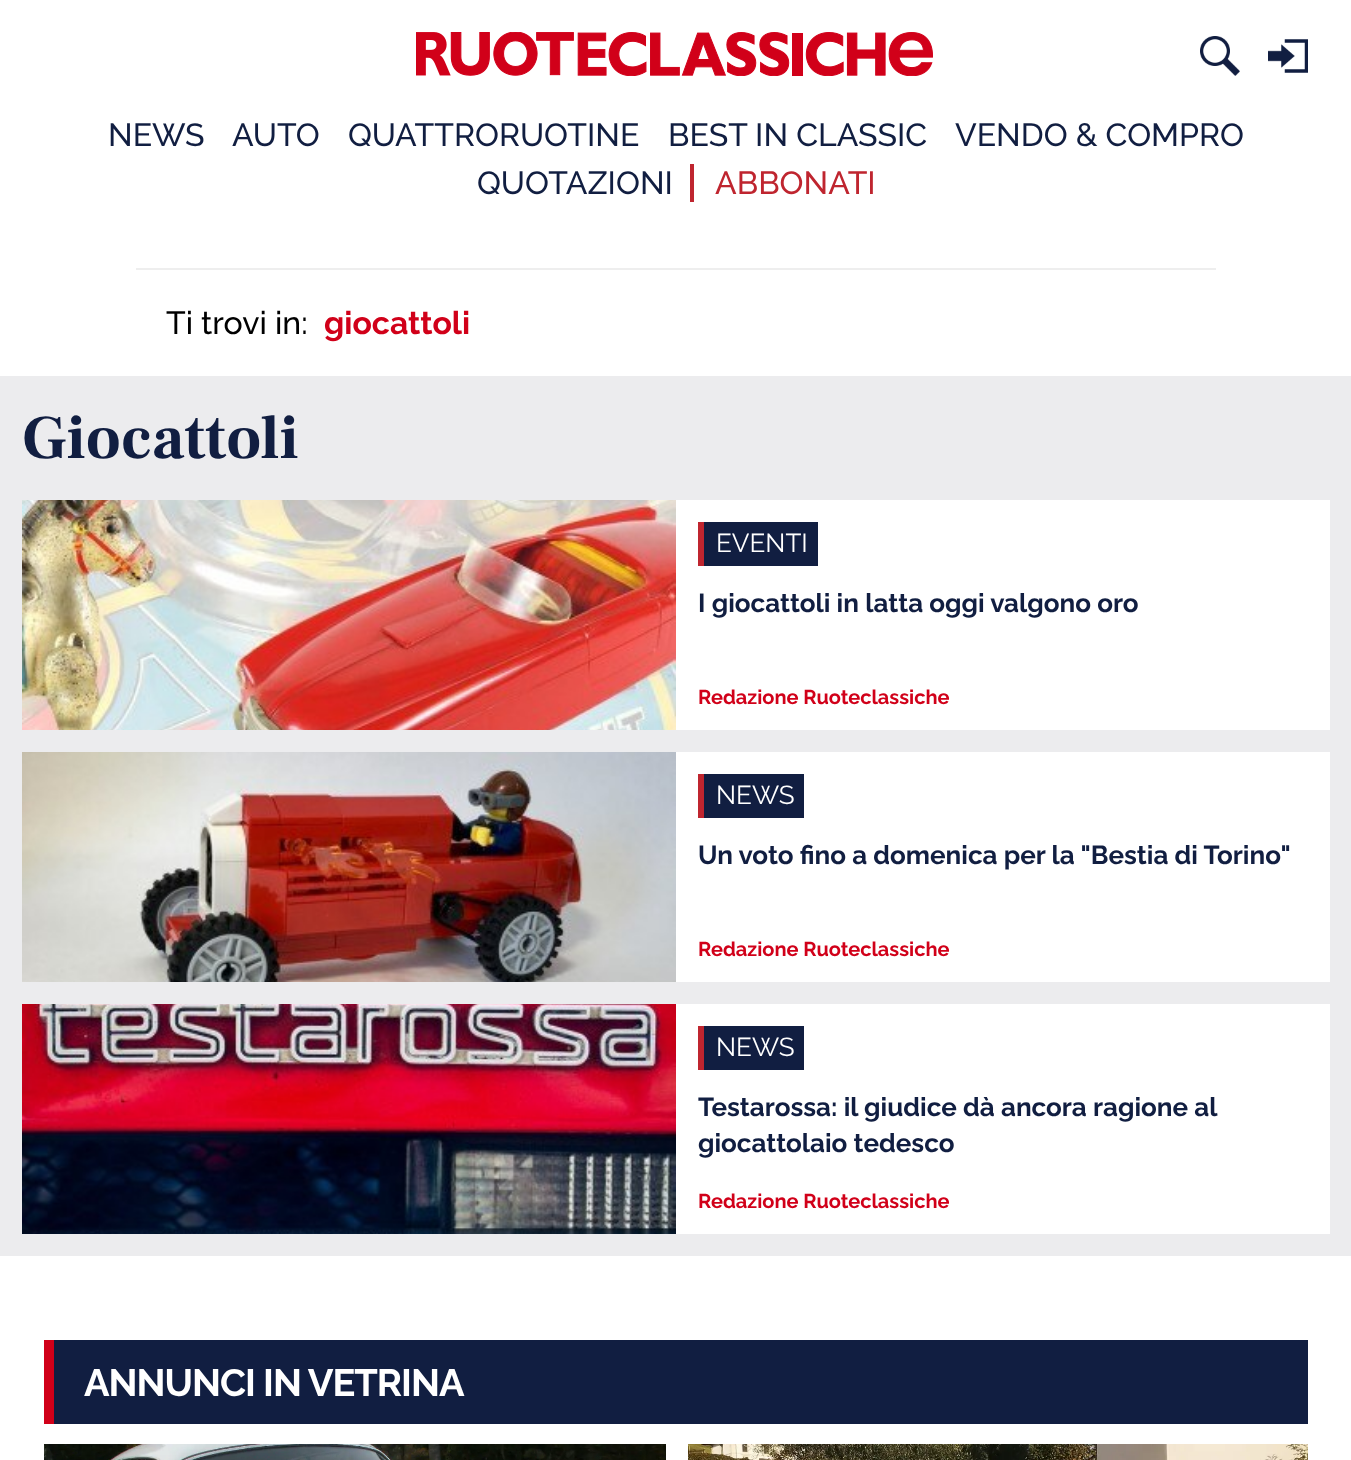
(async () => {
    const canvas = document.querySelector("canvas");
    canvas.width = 1351;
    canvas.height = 1460;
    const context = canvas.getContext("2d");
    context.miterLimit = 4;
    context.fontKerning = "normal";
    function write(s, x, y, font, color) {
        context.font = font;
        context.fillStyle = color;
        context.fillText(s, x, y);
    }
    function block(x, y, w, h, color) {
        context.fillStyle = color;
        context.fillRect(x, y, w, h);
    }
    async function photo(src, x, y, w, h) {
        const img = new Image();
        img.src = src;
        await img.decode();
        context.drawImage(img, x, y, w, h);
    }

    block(0, 0, 1351, 1460, "rgb(255, 255, 255)");
    await photo("media/1.png", 416, 32, 517, 44);
    await photo("media/2.png", 1200, 36, 40, 40);
    await photo("media/3.png", 1268, 39, 40, 34);
    write("NEWS", 108, 146, "500 32px Raleway", "rgb(17, 30, 65)");
    write("AUTO", 232, 146, "500 32px Raleway", "rgb(17, 30, 65)");
    write("QUATTRORUOTINE", 348, 146, "500 32px Raleway", "rgb(17, 30, 65)");
    write("BEST IN CLASSIC", 668, 146, "500 32px Raleway", "rgb(17, 30, 65)");
    write("VENDO & COMPRO", 955, 146, "500 32px Raleway", "rgb(17, 30, 65)");
    write("QUOTAZIONI", 477, 194, "500 32px Raleway", "rgb(17, 30, 65)");
    write("ABBONATI", 715, 194, "500 32px Raleway", "rgb(191, 37, 47)");
    block(690, 164, 4, 38, "rgb(191, 37, 47)");
    block(136, 268, 1080, 2, "rgb(238, 238, 238)");
    write("Ti trovi in:", 166, 334, "500 32px Raleway", "rgb(0, 0, 0)");
    write("giocattoli", 324, 334, "bold 32px Raleway", "rgb(209, 0, 25)");
    block(0, 376, 1351, 880, "rgb(236, 236, 238)");
    write("Giocattoli", 22, 458, "bold 62px Frank Ruhl Libre", "rgb(17, 30, 65)");
    await photo("media/4.png", 22, 500, 654, 230);
    block(676, 500, 654, 230, "rgb(255, 255, 255)");
    block(704, 522, 114, 44, "rgb(17, 30, 65)");
    block(698, 522, 6, 44, "rgb(191, 37, 47)");
    write("EVENTI", 716, 552, "26px Raleway", "rgb(255, 255, 255)");
    write("I giocattoli in latta oggi valgono oro", 698, 612, "bold 26px Raleway", "rgb(17, 30, 65)");
    write("Redazione Ruoteclassiche", 698, 704, "bold 20px Raleway", "rgb(209, 0, 25)");
    await photo("media/5.png", 22, 752, 654, 230);
    block(676, 752, 654, 230, "rgb(255, 255, 255)");
    block(704, 774, 100, 44, "rgb(17, 30, 65)");
    block(698, 774, 6, 44, "rgb(191, 37, 47)");
    write("NEWS", 716, 804, "26px Raleway", "rgb(255, 255, 255)");
    write("Un voto fino a domenica per la \"Bestia di Torino\"", 698, 864, "bold 26px Raleway", "rgb(17, 30, 65)");
    write("Redazione Ruoteclassiche", 698, 956, "bold 20px Raleway", "rgb(209, 0, 25)");
    await photo("media/6.png", 22, 1004, 654, 230);
    block(676, 1004, 654, 230, "rgb(255, 255, 255)");
    block(704, 1026, 100, 44, "rgb(17, 30, 65)");
    block(698, 1026, 6, 44, "rgb(191, 37, 47)");
    write("NEWS", 716, 1056, "26px Raleway", "rgb(255, 255, 255)");
    write("Testarossa: il giudice dà ancora ragione al", 698, 1116, "bold 26px Raleway", "rgb(17, 30, 65)");
    write("giocattolaio tedesco", 698, 1152, "bold 26px Raleway", "rgb(17, 30, 65)");
    write("Redazione Ruoteclassiche", 698, 1208, "bold 20px Raleway", "rgb(209, 0, 25)");
    block(54, 1340, 1254, 84, "rgb(17, 30, 65)");
    block(44, 1340, 10, 84, "rgb(209, 0, 25)");
    context.letterSpacing = "-1px";
    write("ANNUNCI IN VETRINA", 84, 1396, "bold 38px Raleway", "rgb(255, 255, 255)");
    await photo("media/7.png", 44, 1444, 622, 16);
    await photo("media/8.png", 688, 1444, 620, 16);
})();
